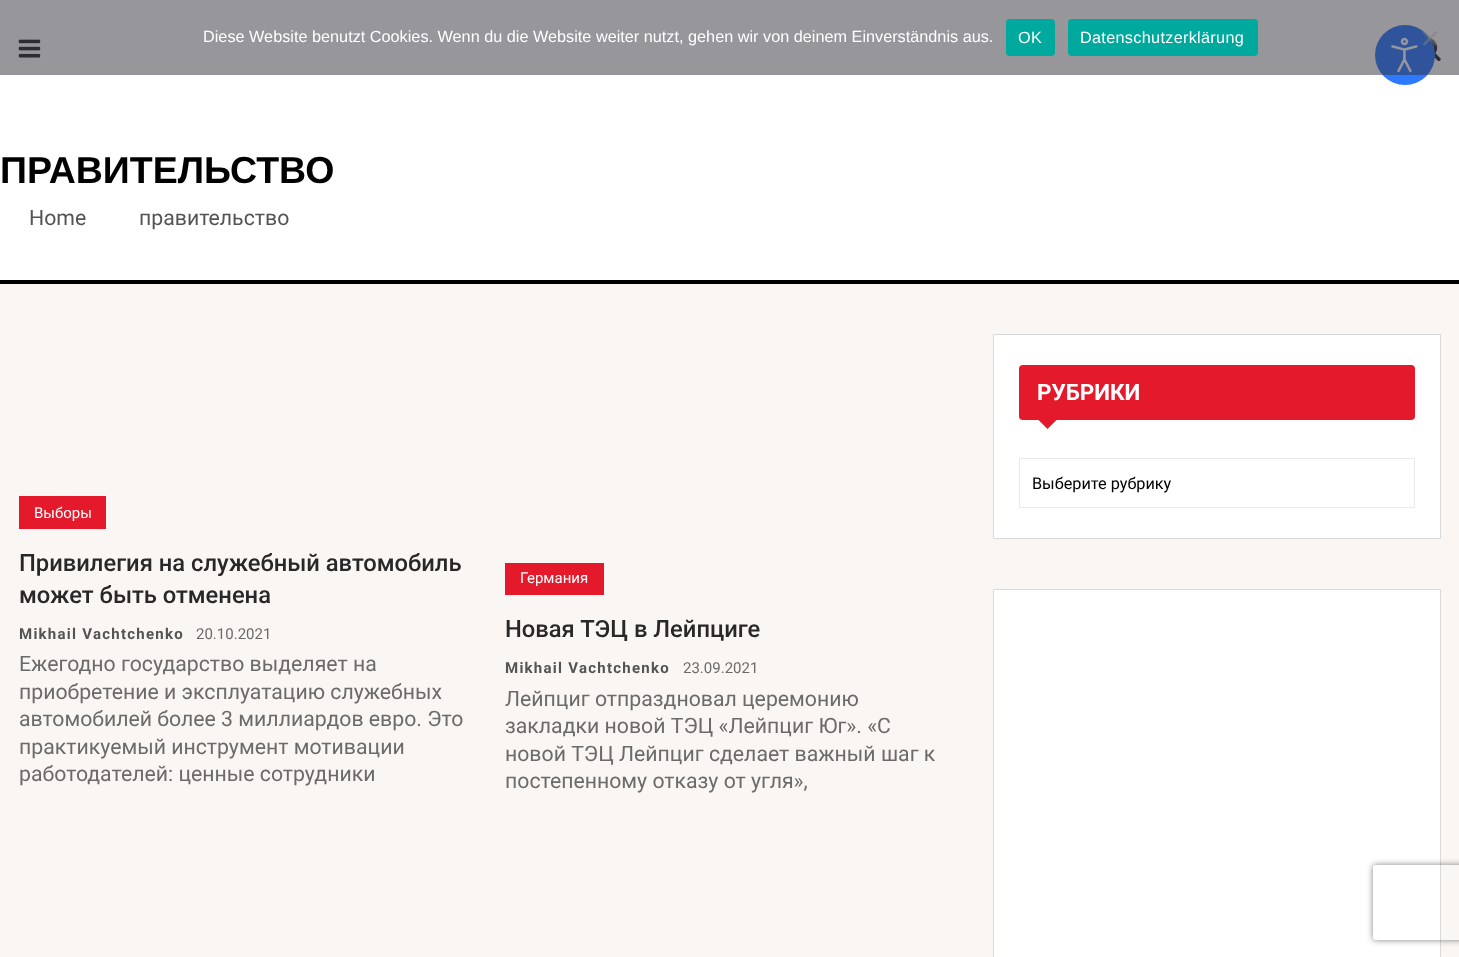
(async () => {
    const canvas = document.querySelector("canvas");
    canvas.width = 1459;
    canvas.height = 957;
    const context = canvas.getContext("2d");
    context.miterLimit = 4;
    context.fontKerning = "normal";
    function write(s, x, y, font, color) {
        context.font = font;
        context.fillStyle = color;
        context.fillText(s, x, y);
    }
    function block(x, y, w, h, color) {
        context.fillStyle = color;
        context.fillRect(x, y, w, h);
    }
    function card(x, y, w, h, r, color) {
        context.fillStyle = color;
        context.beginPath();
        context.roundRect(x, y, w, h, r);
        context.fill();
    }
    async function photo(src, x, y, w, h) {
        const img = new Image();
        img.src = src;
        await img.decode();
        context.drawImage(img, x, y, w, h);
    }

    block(0, 0, 1459, 957, "rgb(250, 246, 243)");
    block(0, 0, 1459, 280, "rgb(255, 255, 255)");
    await photo("media/1.png", 18, 39, 23, 19);
    await photo("media/2.png", 1429, 38, 12, 23);
    context.fillStyle = "rgb(45, 121, 255)";
    context.beginPath();
    context.arc(1405, 55, 30, 0, Math.PI * 2);
    context.fill();
    await photo("media/3.png", 1391, 37, 27, 36);
    block(0, 0, 1459, 75, "rgba(50, 50, 58, 0.51)");
    write("Diese Website benutzt Cookies. Wenn du die Website weiter nutzt, gehen wir von deinem Einverständnis aus.", 203, 42, "16.25px Liberation Sans", "rgb(255, 255, 255)");
    card(1006, 19, 49, 37, 4, "rgb(0, 169, 157)");
    context.letterSpacing = "0.3px";
    write("OK", 1018, 43, "16.25px Liberation Sans", "rgb(255, 255, 255)");
    card(1068, 19, 190, 37, 4, "rgb(0, 169, 157)");
    write("Datenschutzerklärung", 1080, 43, "16.25px Liberation Sans", "rgb(255, 255, 255)");
    context.fillStyle = "rgba(128, 128, 128, 0.5)";
    context.beginPath();
    context.moveTo(1435.5, 31);
    context.lineTo(1437.5, 32.5);
    context.lineTo(1424.5, 46);
    context.lineTo(1422.5, 44);
    context.closePath();
    context.fill();
    context.beginPath();
    context.moveTo(1422.5, 32.5);
    context.lineTo(1424.5, 31);
    context.lineTo(1437.5, 44);
    context.lineTo(1435.5, 46);
    context.closePath();
    context.fill();
    block(0, 280, 1459, 4, "rgb(0, 0, 0)");
    context.letterSpacing = "0px";
    write("ПРАВИТЕЛЬСТВО", 0, 183, "bold 37.5px Liberation Sans", "rgb(0, 0, 0)");
    write("Home", 29, 225, "21.25px Roboto", "rgb(84, 84, 84)");
    write("правительство", 139, 225, "21.25px Roboto", "rgb(84, 84, 84)");
    context.fillStyle = "rgb(255, 255, 255)";
    context.beginPath();
    context.rect(993.5, 334.5, 447, 204);
    context.fill();
    context.strokeStyle = "rgb(217, 217, 217)";
    context.stroke();
    card(1019, 365, 396, 55, 4, "rgb(229, 25, 44)");
    write("РУБРИКИ", 1037, 400, "bold 22.5px Roboto", "rgb(255, 255, 255)");
    context.fillStyle = "rgb(229, 25, 44)";
    context.beginPath();
    context.moveTo(1036, 417.5);
    context.lineTo(1059, 417.5);
    context.lineTo(1047.5, 429);
    context.closePath();
    context.fill();
    context.strokeStyle = "rgb(234, 234, 234)";
    context.strokeRect(1019.5, 458.5, 395, 49);
    write("Выберите рубрику", 1032, 489, "16.25px Roboto", "rgb(0, 0, 0)");
    context.fillStyle = "rgb(255, 255, 255)";
    context.beginPath();
    context.rect(993.5, 589.5, 447, 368);
    context.fill();
    context.strokeStyle = "rgb(217, 217, 217)";
    context.stroke();
    block(19, 496, 87, 33, "rgb(229, 25, 44)");
    write("Выборы", 34, 518, "15px Roboto", "rgb(255, 255, 255)");
    write("Привилегия на служебный автомобиль", 19, 571, "500 23.75px Roboto", "rgb(40, 40, 40)");
    write("может быть отменена", 19, 603, "500 23.75px Roboto", "rgb(40, 40, 40)");
    context.letterSpacing = "1.25px";
    write("Mikhail Vachtchenko", 19, 639, "bold 15px Roboto", "rgb(84, 84, 84)");
    context.letterSpacing = "0px";
    write("20.10.2021", 196, 639, "15px Roboto", "rgb(107, 107, 107)");
    write("Ежегодно государство выделяет на", 19, 671, "21.25px Roboto", "rgb(107, 107, 107)");
    write("приобретение и эксплуатацию служебных", 19, 699, "21.25px Roboto", "rgb(107, 107, 107)");
    write("автомобилей более 3 миллиардов евро. Это", 19, 726, "21.25px Roboto", "rgb(107, 107, 107)");
    write("практикуемый инструмент мотивации", 19, 754, "21.25px Roboto", "rgb(107, 107, 107)");
    write("работодателей: ценные сотрудники", 19, 781, "21.25px Roboto", "rgb(107, 107, 107)");
    block(505, 563, 99, 32, "rgb(229, 25, 44)");
    write("Германия", 520, 583, "15px Roboto", "rgb(255, 255, 255)");
    write("Новая ТЭЦ в Лейпциге", 505, 637, "500 23.75px Roboto", "rgb(40, 40, 40)");
    context.letterSpacing = "1.25px";
    write("Mikhail Vachtchenko", 505, 673, "bold 15px Roboto", "rgb(84, 84, 84)");
    context.letterSpacing = "0px";
    write("23.09.2021", 683, 673, "15px Roboto", "rgb(107, 107, 107)");
    write("Лейпциг отпраздновал церемонию", 505, 706, "21.25px Roboto", "rgb(107, 107, 107)");
    write("закладки новой ТЭЦ «Лейпциг Юг». «С", 505, 733, "21.25px Roboto", "rgb(107, 107, 107)");
    write("новой ТЭЦ Лейпциг сделает важный шаг к", 505, 761, "21.25px Roboto", "rgb(107, 107, 107)");
    write("постепенному отказу от угля»,", 505, 788, "21.25px Roboto", "rgb(107, 107, 107)");
    context.save();
    context.beginPath();
    context.moveTo(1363, 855);
    context.lineTo(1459, 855);
    context.lineTo(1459, 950);
    context.lineTo(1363, 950);
    context.closePath();
    context.moveTo(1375.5, 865);
    context.lineTo(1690.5, 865);
    context.bezierCurveTo(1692, 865, 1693, 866, 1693, 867.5);
    context.lineTo(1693, 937.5);
    context.bezierCurveTo(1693, 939, 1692, 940, 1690.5, 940);
    context.lineTo(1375.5, 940);
    context.bezierCurveTo(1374, 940, 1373, 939, 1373, 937.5);
    context.lineTo(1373, 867.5);
    context.bezierCurveTo(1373, 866, 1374, 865, 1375.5, 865);
    context.closePath();
    context.clip("evenodd");
    context.fillStyle = "rgb(128, 128, 128)";
    context.filter = "blur(3px)";
    context.beginPath();
    context.roundRect(1373, 865, 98, 75, 2.5);
    context.fill();
    context.filter = "none";
    context.restore();
})();
